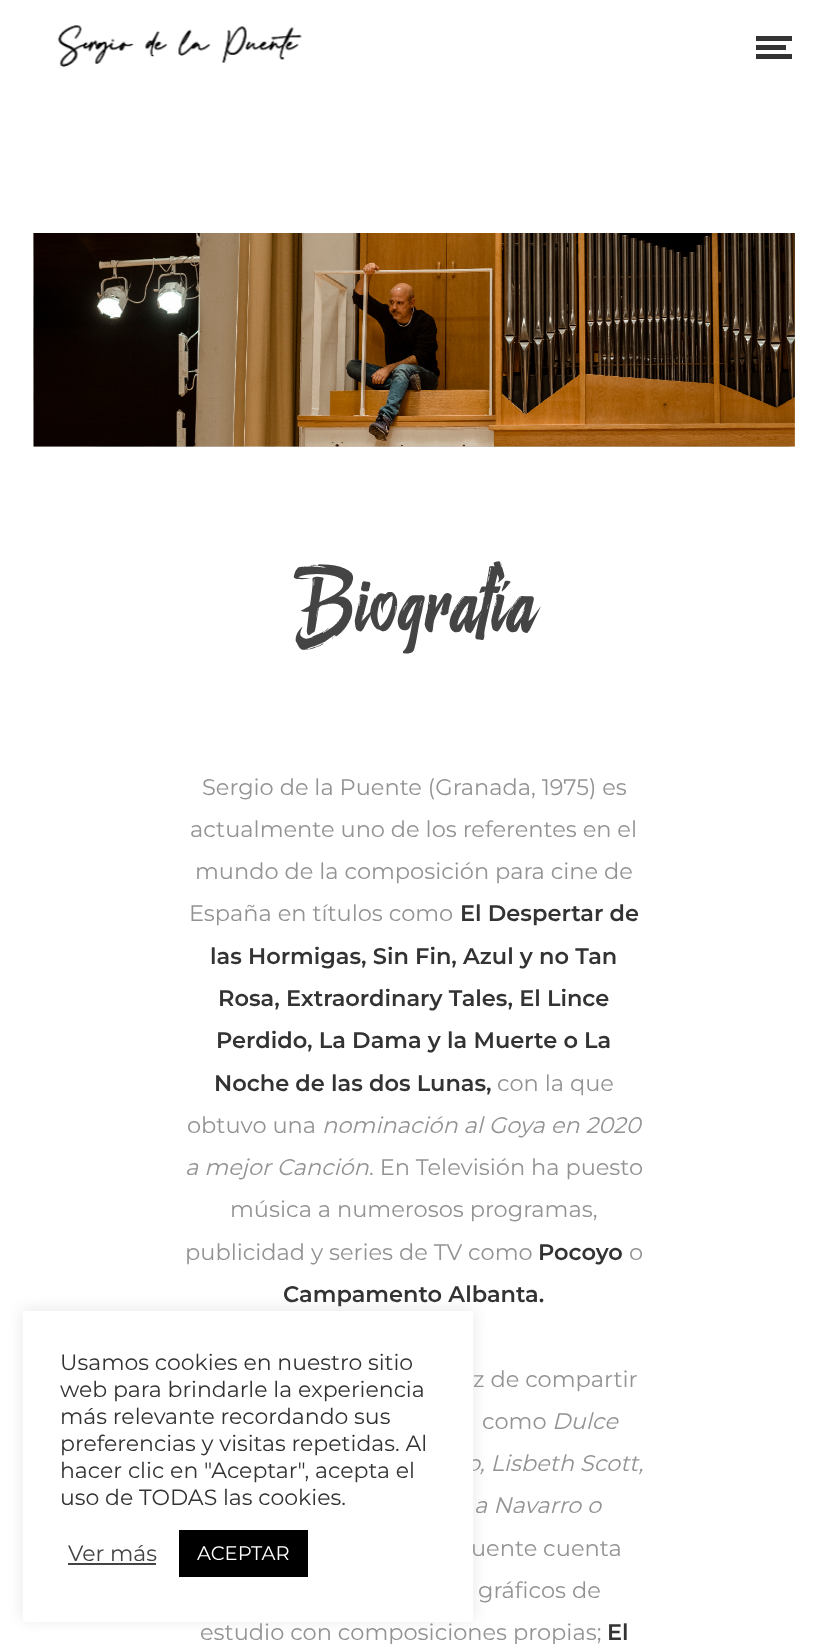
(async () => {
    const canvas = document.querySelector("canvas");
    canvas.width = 828;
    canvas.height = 1644;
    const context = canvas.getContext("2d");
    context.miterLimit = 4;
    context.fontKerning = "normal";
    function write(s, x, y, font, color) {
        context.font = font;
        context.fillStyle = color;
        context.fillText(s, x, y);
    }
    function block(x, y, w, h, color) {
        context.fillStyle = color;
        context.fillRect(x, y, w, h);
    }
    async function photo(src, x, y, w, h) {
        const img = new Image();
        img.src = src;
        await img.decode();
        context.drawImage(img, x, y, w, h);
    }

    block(0, 0, 828, 1644, "rgb(255, 255, 255)");
    await photo("media/1.png", 57, 25, 245, 43);
    block(756, 36, 36, 5, "rgb(51, 51, 51)");
    block(756, 45, 30, 5, "rgb(51, 51, 51)");
    block(756, 54, 36, 5, "rgb(51, 51, 51)");
    await photo("media/2.png", 33, 233, 762, 214);
    context.letterSpacing = "1.5px";
    write("Biografía", 293, 633, "112.5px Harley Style", "rgb(68, 68, 68)");
    context.letterSpacing = "0px";
    write("Sergio de la Puente (Granada, 1975) es", 202, 795, "22.5px Montserrat", "rgb(147, 147, 147)");
    write("actualmente uno de los referentes en el", 190, 837, "22.5px Montserrat", "rgb(147, 147, 147)");
    write("mundo de la composición para cine de", 195, 879, "22.5px Montserrat", "rgb(147, 147, 147)");
    write("España en títulos como", 189, 921, "22.5px Montserrat", "rgb(147, 147, 147)");
    write("El Despertar de", 460, 921, "600 22.5px Montserrat", "rgb(51, 51, 51)");
    write("las Hormigas, Sin Fin, Azul y no Tan", 210, 964, "600 22.5px Montserrat", "rgb(51, 51, 51)");
    write("Rosa, Extraordinary Tales, El Lince", 218, 1006, "600 22.5px Montserrat", "rgb(51, 51, 51)");
    write("Perdido, La Dama y la Muerte o La", 216, 1048, "600 22.5px Montserrat", "rgb(51, 51, 51)");
    write("Noche de las dos Lunas,", 214, 1091, "600 22.5px Montserrat", "rgb(51, 51, 51)");
    write("con la que", 497, 1091, "22.5px Montserrat", "rgb(147, 147, 147)");
    write("obtuvo una", 187, 1133, "22.5px Montserrat", "rgb(147, 147, 147)");
    write("nominación al Goya en 2020", 322, 1133, "italic 22.5px Montserrat", "rgb(147, 147, 147)");
    write("a mejor Canción", 185, 1175, "italic 22.5px Montserrat", "rgb(147, 147, 147)");
    write(". En Televisión ha puesto", 369, 1175, "22.5px Montserrat", "rgb(147, 147, 147)");
    write("música a numerosos programas,", 230, 1217, "22.5px Montserrat", "rgb(147, 147, 147)");
    write("publicidad y series de TV como", 185, 1260, "22.5px Montserrat", "rgb(147, 147, 147)");
    write("Pocoyo", 538, 1260, "600 22.5px Montserrat", "rgb(51, 51, 51)");
    write("o", 629, 1260, "22.5px Montserrat", "rgb(147, 147, 147)");
    write("Campamento Albanta.", 283, 1302, "600 22.5px Montserrat", "rgb(51, 51, 51)");
    write("z de compartir", 473, 1387, "22.5px Montserrat", "rgb(147, 147, 147)");
    write("como", 482, 1429, "22.5px Montserrat", "rgb(147, 147, 147)");
    write("Dulce", 552, 1429, "italic 22.5px Montserrat", "rgb(147, 147, 147)");
    write("o, Lisbeth Scott,", 466, 1471, "italic 22.5px Montserrat", "rgb(147, 147, 147)");
    write("a Navarro o", 474, 1513, "italic 22.5px Montserrat", "rgb(147, 147, 147)");
    write("uente cuenta", 471, 1556, "22.5px Montserrat", "rgb(147, 147, 147)");
    write("gráficos de", 478, 1598, "22.5px Montserrat", "rgb(147, 147, 147)");
    write("estudio con composiciones propias;", 200, 1640, "22.5px Montserrat", "rgb(147, 147, 147)");
    write("El", 607, 1640, "600 22.5px Montserrat", "rgb(51, 51, 51)");
    context.fillStyle = "rgba(172, 171, 171, 0.3)";
    context.filter = "blur(7.5px)";
    context.beginPath();
    context.rect(23, 1310, 450, 310);
    context.fill();
    context.filter = "none";
    block(23, 1311, 450, 311, "rgb(255, 255, 255)");
    write("Usamos cookies en nuestro sitio", 60, 1370, "22px Montserrat", "rgb(51, 51, 51)");
    write("web para brindarle la experiencia", 60, 1397, "22px Montserrat", "rgb(51, 51, 51)");
    write("más relevante recordando sus", 60, 1424, "22px Montserrat", "rgb(51, 51, 51)");
    write("preferencias y visitas repetidas. Al", 60, 1451, "22px Montserrat", "rgb(51, 51, 51)");
    write("hacer clic en \"Aceptar\", acepta el", 60, 1478, "22px Montserrat", "rgb(51, 51, 51)");
    write("uso de TODAS las cookies.", 60, 1505, "22px Montserrat", "rgb(51, 51, 51)");
    write("Ver más", 68, 1561, "22px Montserrat", "rgb(68, 68, 68)");
    block(68, 1563, 88, 2, "rgb(68, 68, 68)");
    block(179, 1530, 129, 47, "rgb(0, 0, 0)");
    write("ACEPTAR", 197, 1560, "19.5px Montserrat", "rgb(255, 255, 255)");
})();
